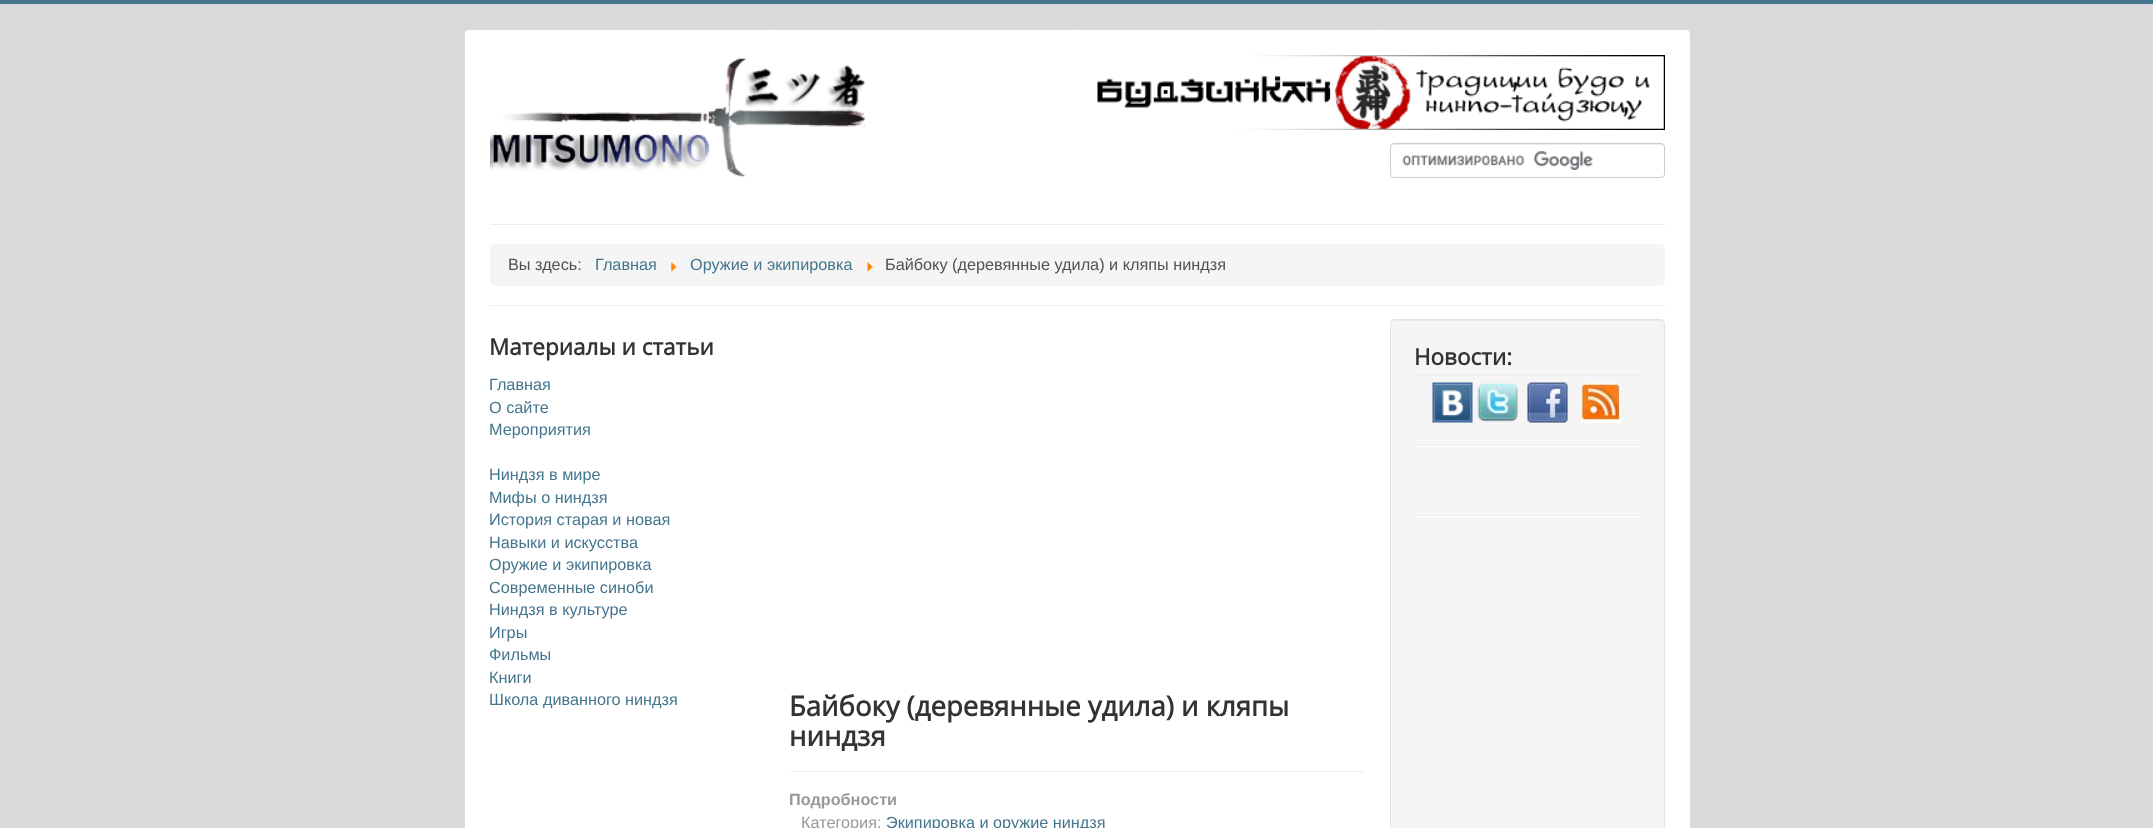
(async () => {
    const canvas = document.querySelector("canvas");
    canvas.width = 2153;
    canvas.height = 828;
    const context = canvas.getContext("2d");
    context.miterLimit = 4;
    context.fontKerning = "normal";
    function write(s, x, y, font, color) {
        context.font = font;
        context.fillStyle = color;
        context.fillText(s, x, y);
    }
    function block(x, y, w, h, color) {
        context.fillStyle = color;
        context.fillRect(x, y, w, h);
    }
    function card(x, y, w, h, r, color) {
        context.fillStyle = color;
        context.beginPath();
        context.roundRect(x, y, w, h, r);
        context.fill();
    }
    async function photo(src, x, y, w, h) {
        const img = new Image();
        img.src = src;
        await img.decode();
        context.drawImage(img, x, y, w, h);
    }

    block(0, 0, 2153, 828, "rgb(217, 217, 217)");
    block(0, 0, 2153, 4, "rgb(68, 117, 143)");
    card(464, 29, 1227, 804, 5, "rgb(255, 255, 255)");
    context.beginPath();
    context.roundRect(464.5, 29.5, 1226, 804, 4.5);
    context.strokeStyle = "rgba(0, 0, 0, 0.15)";
    context.stroke();
    await photo("media/1.png", 490, 58, 375, 119);
    await photo("media/2.png", 1097, 55, 568, 75);
    await photo("media/3.png", 1402, 151, 191, 19);
    context.fillStyle = "rgb(236, 236, 236)";
    context.beginPath();
    context.moveTo(1394, 145);
    context.lineTo(1661, 145);
    context.bezierCurveTo(1663, 145, 1664, 146, 1664, 148);
    context.lineTo(1664, 146);
    context.bezierCurveTo(1664, 145, 1663, 144, 1662, 144);
    context.lineTo(1394, 144);
    context.bezierCurveTo(1392, 144, 1391, 145, 1391, 146);
    context.lineTo(1391, 148);
    context.bezierCurveTo(1391, 146, 1392, 145, 1394, 145);
    context.closePath();
    context.fill();
    context.beginPath();
    context.roundRect(1390.5, 143.5, 274, 34, 3.5);
    context.strokeStyle = "rgb(204, 204, 204)";
    context.stroke();
    block(490, 224, 1175, 1, "rgb(236, 236, 236)");
    block(490, 305, 1175, 1, "rgb(236, 236, 236)");
    card(490, 244, 1175, 42, 5, "rgb(245, 245, 245)");
    write("Вы здесь:", 508, 270, "16.25px Liberation Sans", "rgb(81, 81, 81)");
    write("Главная", 595, 270, "16.25px Liberation Sans", "rgb(68, 117, 143)");
    await photo("media/4.png", 671, 262, 6, 10);
    write("Оружие и экипировка", 690, 270, "16.25px Liberation Sans", "rgb(68, 117, 143)");
    await photo("media/5.png", 867, 262, 6, 10);
    write("Байбоку (деревянные удила) и кляпы ниндзя", 885, 270, "16.25px Liberation Sans", "rgb(81, 81, 81)");
    write("Материалы и статьи", 489, 355, "bold 22.5px Open Sans", "rgb(51, 51, 51)");
    write("Главная", 489, 390, "16.25px Liberation Sans", "rgb(68, 117, 143)");
    write("О сайте", 489, 413, "16.25px Liberation Sans", "rgb(68, 117, 143)");
    write("Мероприятия", 489, 435, "16.25px Liberation Sans", "rgb(68, 117, 143)");
    write("Ниндзя в мире", 489, 480, "16.25px Liberation Sans", "rgb(68, 117, 143)");
    write("Мифы о ниндзя", 489, 503, "16.25px Liberation Sans", "rgb(68, 117, 143)");
    write("История старая и новая", 489, 525, "16.25px Liberation Sans", "rgb(68, 117, 143)");
    write("Навыки и искусства", 489, 548, "16.25px Liberation Sans", "rgb(68, 117, 143)");
    write("Оружие и экипировка", 489, 570, "16.25px Liberation Sans", "rgb(68, 117, 143)");
    write("Современные синоби", 489, 593, "16.25px Liberation Sans", "rgb(68, 117, 143)");
    write("Ниндзя в культуре", 489, 615, "16.25px Liberation Sans", "rgb(68, 117, 143)");
    write("Игры", 489, 638, "16.25px Liberation Sans", "rgb(68, 117, 143)");
    write("Фильмы", 489, 660, "16.25px Liberation Sans", "rgb(68, 117, 143)");
    write("Книги", 489, 683, "16.25px Liberation Sans", "rgb(68, 117, 143)");
    write("Школа диванного ниндзя", 489, 705, "16.25px Liberation Sans", "rgb(68, 117, 143)");
    card(1390, 319, 275, 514, 5, "rgb(245, 245, 245)");
    context.fillStyle = "rgb(233, 233, 233)";
    context.beginPath();
    context.moveTo(1395, 321);
    context.lineTo(1660, 321);
    context.bezierCurveTo(1662, 321, 1664, 323, 1664, 325);
    context.bezierCurveTo(1664, 322, 1663, 320, 1660, 320);
    context.lineTo(1395, 320);
    context.bezierCurveTo(1392, 320, 1391, 322, 1391, 325);
    context.bezierCurveTo(1391, 323, 1393, 321, 1395, 321);
    context.closePath();
    context.fill();
    context.beginPath();
    context.roundRect(1390.5, 319.5, 274, 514, 4.5);
    context.strokeStyle = "rgb(227, 227, 227)";
    context.stroke();
    block(1415, 375, 225, 1, "rgb(238, 238, 238)");
    write("Новости:", 1414, 365, "bold 22.5px Open Sans", "rgb(51, 51, 51)");
    await photo("media/6.png", 1432, 382, 41, 41);
    await photo("media/7.png", 1477, 383, 41, 39);
    await photo("media/8.png", 1527, 382, 41, 41);
    await photo("media/9.png", 1581, 382, 41, 41);
    block(1415, 445, 225, 1, "rgb(238, 238, 238)");
    block(1415, 446, 225, 1, "rgb(255, 255, 255)");
    block(1415, 515, 225, 1, "rgb(238, 238, 238)");
    block(1415, 516, 225, 1, "rgb(255, 255, 255)");
    block(790, 771, 575, 1, "rgb(238, 238, 238)");
    write("Байбоку (деревянные удила) и кляпы", 789, 716, "bold 27.5px Open Sans", "rgb(51, 51, 51)");
    write("ниндзя", 789, 746, "bold 27.5px Open Sans", "rgb(51, 51, 51)");
    write("Подробности", 789, 805, "bold 16.25px Liberation Sans", "rgb(153, 153, 153)");
    write("Категория:", 801, 828, "16.25px Liberation Sans", "rgb(153, 153, 153)");
    write("Экипировка и оружие ниндзя", 886, 828, "16.25px Liberation Sans", "rgb(68, 117, 143)");
})();
